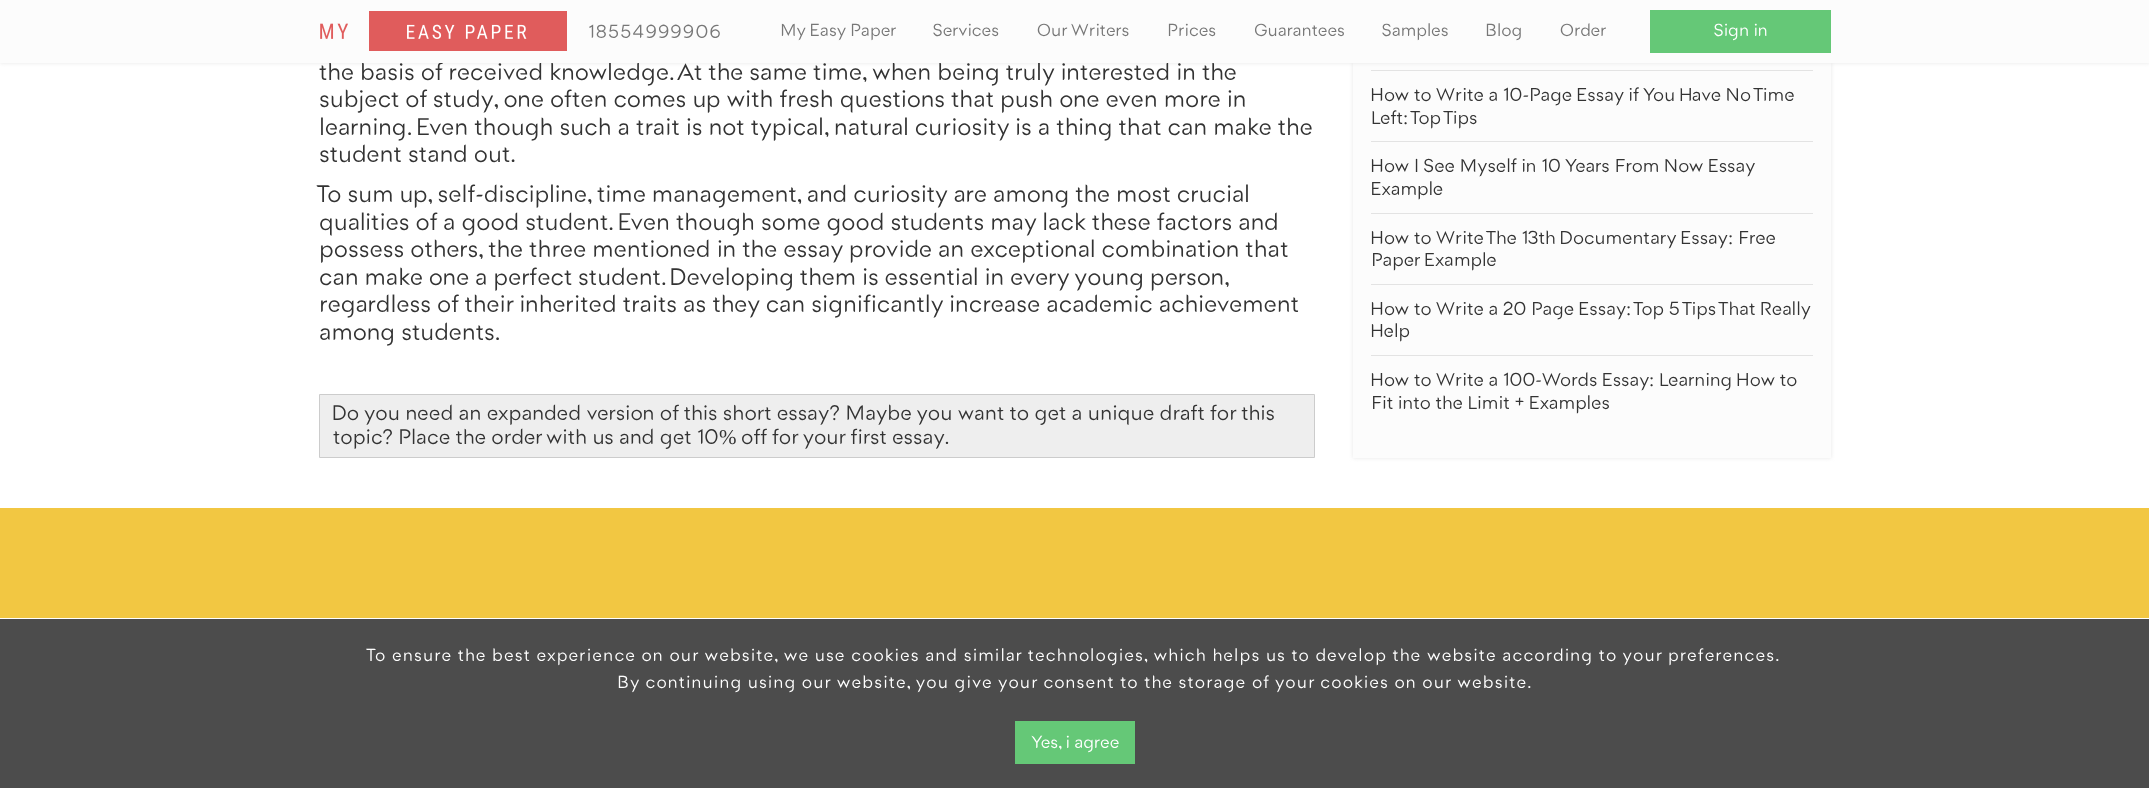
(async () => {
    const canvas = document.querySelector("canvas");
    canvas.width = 2149;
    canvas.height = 788;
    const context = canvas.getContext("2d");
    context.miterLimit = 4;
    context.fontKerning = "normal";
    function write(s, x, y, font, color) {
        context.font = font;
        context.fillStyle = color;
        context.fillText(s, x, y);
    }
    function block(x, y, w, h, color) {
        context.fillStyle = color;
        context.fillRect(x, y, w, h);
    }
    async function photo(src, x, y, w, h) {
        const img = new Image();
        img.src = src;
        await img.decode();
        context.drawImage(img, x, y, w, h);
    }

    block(0, 0, 2149, 788, "rgb(255, 255, 255)");
    context.fillStyle = "rgb(231, 231, 231)";
    context.filter = "blur(2px)";
    context.beginPath();
    context.rect(1353, -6, 478, 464);
    context.fill();
    context.filter = "none";
    block(1353, 63, 478, 395, "rgb(252, 252, 252)");
    context.fillStyle = "rgb(231, 231, 231)";
    context.filter = "blur(2px)";
    context.beginPath();
    context.rect(0, 0, 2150, 63);
    context.fill();
    context.filter = "none";
    write("the basis of received knowledge. At the same time, when being truly interested in the", 319, 80, "24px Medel", "rgb(51, 51, 51)");
    block(0, 0, 2149, 63, "rgb(252, 252, 252)");
    await photo("media/1.png", 320, 11, 247, 40);
    context.letterSpacing = "1.12px";
    write("18554999906", 588, 38, "18.75px Medel", "rgb(119, 119, 119)");
    context.letterSpacing = "0px";
    write("My Easy Paper", 780, 36, "17.5px Medel", "rgb(119, 119, 119)");
    write("Services", 933, 36, "17.5px Medel", "rgb(119, 119, 119)");
    write("Our Writers", 1037, 36, "17.5px Medel", "rgb(119, 119, 119)");
    write("Prices", 1167, 36, "17.5px Medel", "rgb(119, 119, 119)");
    write("Guarantees", 1254, 36, "17.5px Medel", "rgb(119, 119, 119)");
    write("Samples", 1382, 36, "17.5px Medel", "rgb(119, 119, 119)");
    write("Blog", 1486, 36, "17.5px Medel", "rgb(119, 119, 119)");
    write("Order", 1560, 36, "17.5px Medel", "rgb(119, 119, 119)");
    block(1650, 10, 181, 43, "rgb(101, 200, 119)");
    write("Sign in", 1714, 36, "17.5px Medel", "rgb(255, 255, 255)");
    write("subject of study, one often comes up with fresh questions that push one even more in", 319, 107, "24px Medel", "rgb(51, 51, 51)");
    write("learning. Even though such a trait is not typical, natural curiosity is a thing that can make the", 319, 135, "24px Medel", "rgb(51, 51, 51)");
    write("student stand out.", 319, 162, "24px Medel", "rgb(51, 51, 51)");
    write("To sum up, self-discipline, time management, and curiosity are among the most crucial", 319, 202, "24px Medel", "rgb(51, 51, 51)");
    write("qualities of a good student. Even though some good students may lack these factors and", 319, 230, "24px Medel", "rgb(51, 51, 51)");
    write("possess others, the three mentioned in the essay provide an exceptional combination that", 319, 257, "24px Medel", "rgb(51, 51, 51)");
    context.wordSpacing = "-0.2px";
    write("can make one a perfect student. Developing them is essential in every young person,", 319, 285, "24px Medel", "rgb(51, 51, 51)");
    context.wordSpacing = "0px";
    write("regardless of their inherited traits as they can significantly increase academic achievement", 319, 312, "24px Medel", "rgb(51, 51, 51)");
    write("among students.", 319, 340, "24px Medel", "rgb(51, 51, 51)");
    context.fillStyle = "rgb(238, 238, 238)";
    context.beginPath();
    context.rect(319.5, 394.5, 995, 63);
    context.fill();
    context.strokeStyle = "rgb(204, 204, 204)";
    context.stroke();
    write("Do you need an expanded version of this short essay? Maybe you want to get a unique draft for this", 333, 420, "21px Medel", "rgb(51, 51, 51)");
    write("topic?", 333, 444, "21px Medel", "rgb(51, 51, 51)");
    write("Place the order", 398, 444, "21px Medel", "rgb(51, 51, 51)");
    write("with us and get 10", 546, 444, "21px Medel", "rgb(51, 51, 51)");
    write("%", 719, 444, "21px Liberation Serif", "rgb(51, 51, 51)");
    write("off for your first essay.", 741, 444, "21px Medel", "rgb(51, 51, 51)");
    block(1371, 70, 442, 1, "rgb(227, 227, 227)");
    block(1371, 141, 442, 1, "rgb(227, 227, 227)");
    write("How to Write a 10-Page Essay if You Have No Time", 1371, 101, "18.75px Medel", "rgb(51, 51, 51)");
    write("Left", 1371, 124, "18.75px Medel", "rgb(51, 51, 51)");
    write(":", 1403, 124, "18.75px Liberation Serif", "rgb(51, 51, 51)");
    write("Top Tips", 1412, 124, "18.75px Medel", "rgb(51, 51, 51)");
    block(1371, 213, 442, 1, "rgb(227, 227, 227)");
    write("How I See Myself in 10 Years From Now Essay", 1371, 172, "18.75px Medel", "rgb(51, 51, 51)");
    write("Example", 1371, 195, "18.75px Medel", "rgb(51, 51, 51)");
    block(1371, 284, 442, 1, "rgb(227, 227, 227)");
    write("How to Write The 13th Documentary Essay", 1371, 244, "18.75px Medel", "rgb(51, 51, 51)");
    write(":", 1728, 244, "18.75px Liberation Serif", "rgb(51, 51, 51)");
    write("Free", 1738, 244, "18.75px Medel", "rgb(51, 51, 51)");
    write("Paper Example", 1371, 266, "18.75px Medel", "rgb(51, 51, 51)");
    block(1371, 355, 442, 1, "rgb(227, 227, 227)");
    write("How to Write a 20 Page Essay", 1371, 315, "18.75px Medel", "rgb(51, 51, 51)");
    write(":", 1626, 315, "18.75px Liberation Serif", "rgb(51, 51, 51)");
    write("Top 5 Tips That Really", 1635, 315, "18.75px Medel", "rgb(51, 51, 51)");
    write("Help", 1371, 337, "18.75px Medel", "rgb(51, 51, 51)");
    write("How to Write a 100-Words Essay", 1371, 386, "18.75px Medel", "rgb(51, 51, 51)");
    write(":", 1649, 386, "18.75px Liberation Serif", "rgb(51, 51, 51)");
    write("Learning How to", 1659, 386, "18.75px Medel", "rgb(51, 51, 51)");
    write("Fit into the Limit + Examples", 1371, 409, "18.75px Medel", "rgb(51, 51, 51)");
    block(0, 508, 2149, 110, "rgb(242, 199, 66)");
    block(0, 619, 2149, 169, "rgb(76, 76, 76)");
    context.letterSpacing = "1.12px";
    write("To ensure the best experience on our website, we use cookies and similar technologies, which helps us to develop the website according to your preferences.", 368, 661, "17.5px Medel", "rgb(255, 255, 255)");
    write("By continuing using our website, you give your consent to the storage of your cookies on our website.", 618, 688, "17.5px Medel", "rgb(255, 255, 255)");
    block(1015, 721, 120, 43, "rgb(101, 200, 119)");
    context.letterSpacing = "0px";
    write("Yes, i agree", 1031, 748, "17.5px Medel", "rgb(255, 255, 255)");
})();
